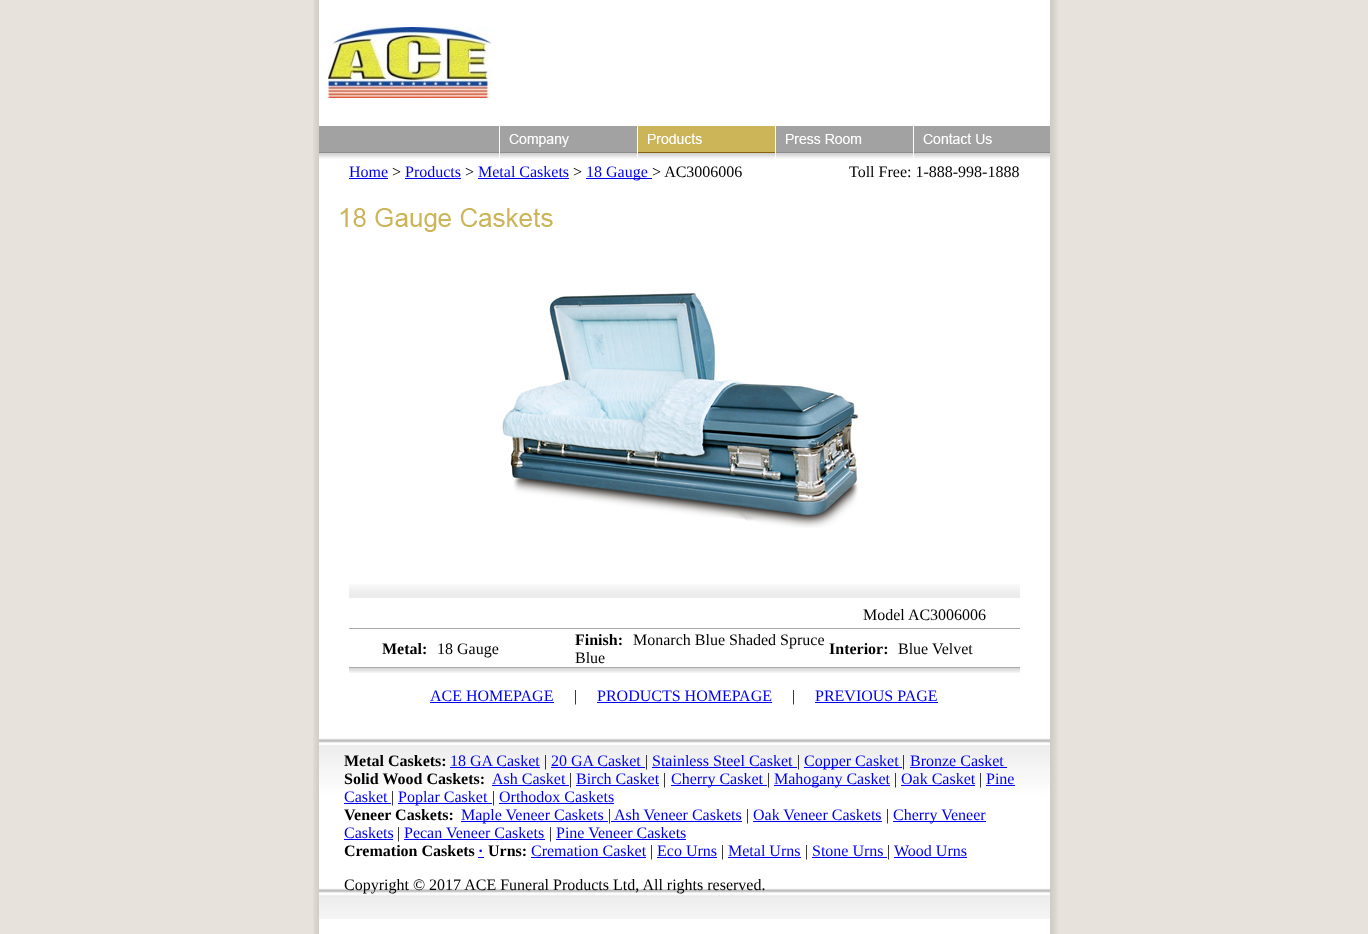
(async () => {
    const canvas = document.querySelector("canvas");
    canvas.width = 1368;
    canvas.height = 934;
    const context = canvas.getContext("2d");
    context.miterLimit = 4;
    context.fontKerning = "normal";
    function write(s, x, y, font, color) {
        context.font = font;
        context.fillStyle = color;
        context.fillText(s, x, y);
    }
    function block(x, y, w, h, color) {
        context.fillStyle = color;
        context.fillRect(x, y, w, h);
    }
    async function photo(src, x, y, w, h) {
        const img = new Image();
        img.src = src;
        await img.decode();
        context.drawImage(img, x, y, w, h);
    }

    block(0, 0, 1368, 934, "rgb(231, 227, 220)");
    await photo("media/1.png", 313, 0, 6, 934);
    block(319, 0, 731, 934, "rgb(255, 255, 255)");
    await photo("media/2.png", 328, 27, 163, 71);
    await photo("media/3.png", 319, 126, 180, 33);
    await photo("media/4.png", 500, 126, 137, 33);
    await photo("media/5.png", 638, 126, 137, 33);
    await photo("media/6.png", 776, 126, 137, 33);
    await photo("media/7.png", 914, 126, 136, 33);
    write("Home", 349, 177, "16px Liberation Serif", "rgb(0, 0, 238)");
    block(349, 178, 39, 1, "rgb(0, 0, 238)");
    write(">", 392, 177, "16px Liberation Serif", "rgb(0, 0, 0)");
    write("Products", 405, 177, "16px Liberation Serif", "rgb(0, 0, 238)");
    block(405, 178, 56, 1, "rgb(0, 0, 238)");
    write(">", 465, 177, "16px Liberation Serif", "rgb(0, 0, 0)");
    write("Metal Caskets", 478, 177, "16px Liberation Serif", "rgb(0, 0, 238)");
    block(478, 178, 91, 1, "rgb(0, 0, 238)");
    write(">", 573, 177, "16px Liberation Serif", "rgb(0, 0, 0)");
    block(586, 178, 66, 1, "rgb(0, 0, 238)");
    write("18 Gauge", 586, 177, "16px Liberation Serif", "rgb(0, 0, 238)");
    write("> AC3006006", 652, 177, "16px Liberation Serif", "rgb(0, 0, 0)");
    write("Toll Free: 1-888-998-1888", 849, 177, "16px Liberation Serif", "rgb(0, 0, 0)");
    await photo("media/8.png", 340, 208, 213, 24);
    await photo("media/9.png", 498, 288, 361, 240);
    await photo("media/10.png", 349, 584, 671, 45);
    write("Model AC3006006", 863, 620, "16px Liberation Serif", "rgb(0, 0, 0)");
    write("Metal:", 382, 654, "bold 16px Liberation Serif", "rgb(0, 0, 0)");
    write("18 Gauge", 437, 654, "16px Liberation Serif", "rgb(0, 0, 0)");
    write("Finish:", 575, 645, "bold 16px Liberation Serif", "rgb(0, 0, 0)");
    write("Monarch Blue Shaded Spruce", 633, 645, "16px Liberation Serif", "rgb(0, 0, 0)");
    write("Blue", 575, 663, "16px Liberation Serif", "rgb(0, 0, 0)");
    write("Interior:", 829, 654, "bold 16px Liberation Serif", "rgb(0, 0, 0)");
    write("Blue Velvet", 898, 654, "16px Liberation Serif", "rgb(0, 0, 0)");
    await photo("media/11.png", 349, 667, 671, 6);
    write("ACE HOMEPAGE", 430, 701, "16px Liberation Serif", "rgb(0, 0, 238)");
    block(430, 702, 124, 1, "rgb(0, 0, 238)");
    write("|", 574, 701, "16px Liberation Serif", "rgb(0, 0, 0)");
    write("PRODUCTS HOMEPAGE", 597, 701, "16px Liberation Serif", "rgb(0, 0, 238)");
    block(597, 702, 175, 1, "rgb(0, 0, 238)");
    write("|", 792, 701, "16px Liberation Serif", "rgb(0, 0, 0)");
    write("PREVIOUS PAGE", 815, 701, "16px Liberation Serif", "rgb(0, 0, 238)");
    block(815, 702, 123, 1, "rgb(0, 0, 238)");
    await photo("media/12.png", 319, 738, 731, 181);
    write("Metal Caskets:", 344, 766, "bold 16px Liberation Serif", "rgb(0, 0, 0)");
    write("18 GA Casket", 450, 766, "16px Liberation Serif", "rgb(0, 0, 238)");
    block(450, 767, 90, 1, "rgb(0, 0, 238)");
    write("|", 544, 766, "16px Liberation Serif", "rgb(0, 0, 0)");
    write("20 GA Casket", 551, 766, "16px Liberation Serif", "rgb(0, 0, 238)");
    write("|", 645, 766, "16px Liberation Serif", "rgb(0, 0, 0)");
    block(551, 767, 94, 1, "rgb(0, 0, 238)");
    write("Stainless Steel Casket", 652, 766, "16px Liberation Serif", "rgb(0, 0, 238)");
    write("|", 797, 766, "16px Liberation Serif", "rgb(0, 0, 0)");
    block(652, 767, 145, 1, "rgb(0, 0, 238)");
    block(804, 767, 98, 1, "rgb(0, 0, 238)");
    write("Copper Casket", 804, 766, "16px Liberation Serif", "rgb(0, 0, 238)");
    write("|", 902, 766, "16px Liberation Serif", "rgb(0, 0, 0)");
    write("Bronze Casket", 910, 766, "16px Liberation Serif", "rgb(0, 0, 238)");
    block(910, 767, 97, 1, "rgb(0, 0, 238)");
    write("Solid Wood Caskets:", 344, 784, "bold 16px Liberation Serif", "rgb(0, 0, 0)");
    write("Ash Casket", 492, 784, "16px Liberation Serif", "rgb(0, 0, 238)");
    write("|", 569, 784, "16px Liberation Serif", "rgb(0, 0, 0)");
    block(492, 785, 77, 1, "rgb(0, 0, 238)");
    write("Birch Casket", 576, 784, "16px Liberation Serif", "rgb(0, 0, 238)");
    block(576, 785, 83, 1, "rgb(0, 0, 238)");
    write("|", 663, 784, "16px Liberation Serif", "rgb(0, 0, 0)");
    block(671, 785, 96, 1, "rgb(0, 0, 238)");
    write("Cherry Casket", 671, 784, "16px Liberation Serif", "rgb(0, 0, 238)");
    write("|", 767, 784, "16px Liberation Serif", "rgb(0, 0, 0)");
    block(774, 785, 116, 1, "rgb(0, 0, 238)");
    write("Mahogany Casket", 774, 784, "16px Liberation Serif", "rgb(0, 0, 238)");
    write("|", 894, 784, "16px Liberation Serif", "rgb(0, 0, 0)");
    write("Oak Casket", 901, 784, "16px Liberation Serif", "rgb(0, 0, 238)");
    block(901, 785, 74, 1, "rgb(0, 0, 238)");
    write("|", 979, 784, "16px Liberation Serif", "rgb(0, 0, 0)");
    write("Pine", 986, 784, "16px Liberation Serif", "rgb(0, 0, 238)");
    block(986, 785, 29, 1, "rgb(0, 0, 238)");
    write("Casket", 344, 802, "16px Liberation Serif", "rgb(0, 0, 238)");
    write("|", 391, 802, "16px Liberation Serif", "rgb(0, 0, 0)");
    block(344, 803, 47, 1, "rgb(0, 0, 238)");
    block(398, 803, 94, 1, "rgb(0, 0, 238)");
    write("Poplar Casket", 398, 802, "16px Liberation Serif", "rgb(0, 0, 238)");
    write("|", 492, 802, "16px Liberation Serif", "rgb(0, 0, 0)");
    write("Orthodox Caskets", 499, 802, "16px Liberation Serif", "rgb(0, 0, 238)");
    block(499, 803, 115, 1, "rgb(0, 0, 238)");
    write("Veneer Caskets:", 344, 820, "bold 16px Liberation Serif", "rgb(0, 0, 0)");
    block(461, 821, 147, 1, "rgb(0, 0, 238)");
    write("Maple Veneer Caskets", 461, 820, "16px Liberation Serif", "rgb(0, 0, 238)");
    write("|", 608, 820, "16px Liberation Serif", "rgb(0, 0, 0)");
    block(611, 821, 131, 1, "rgb(0, 0, 238)");
    write("Ash Veneer Caskets", 614, 820, "16px Liberation Serif", "rgb(0, 0, 238)");
    write("|", 746, 820, "16px Liberation Serif", "rgb(0, 0, 0)");
    write("Oak Veneer Caskets", 753, 820, "16px Liberation Serif", "rgb(0, 0, 238)");
    block(753, 821, 129, 1, "rgb(0, 0, 238)");
    write("|", 886, 820, "16px Liberation Serif", "rgb(0, 0, 0)");
    block(893, 821, 93, 1, "rgb(0, 0, 238)");
    write("Cherry Veneer", 893, 820, "16px Liberation Serif", "rgb(0, 0, 238)");
    write("Caskets", 344, 838, "16px Liberation Serif", "rgb(0, 0, 238)");
    block(344, 839, 49, 1, "rgb(0, 0, 238)");
    write("|", 397, 838, "16px Liberation Serif", "rgb(0, 0, 0)");
    write("Pecan Veneer Caskets", 404, 838, "16px Liberation Serif", "rgb(0, 0, 238)");
    block(404, 839, 141, 1, "rgb(0, 0, 238)");
    write("|", 549, 838, "16px Liberation Serif", "rgb(0, 0, 0)");
    write("Pine Veneer Caskets", 556, 838, "16px Liberation Serif", "rgb(0, 0, 238)");
    block(556, 839, 130, 1, "rgb(0, 0, 238)");
    write("Cremation Caskets", 344, 856, "bold 16px Liberation Serif", "rgb(0, 0, 0)");
    write("·", 478, 856, "bold 16px Liberation Serif", "rgb(0, 0, 238)");
    block(478, 857, 6, 1, "rgb(0, 0, 238)");
    write("Urns:", 488, 856, "bold 16px Liberation Serif", "rgb(0, 0, 0)");
    write("Cremation Casket", 531, 856, "16px Liberation Serif", "rgb(0, 0, 238)");
    block(531, 857, 115, 1, "rgb(0, 0, 238)");
    write("|", 650, 856, "16px Liberation Serif", "rgb(0, 0, 0)");
    write("Eco Urns", 657, 856, "16px Liberation Serif", "rgb(0, 0, 238)");
    block(657, 857, 60, 1, "rgb(0, 0, 238)");
    write("|", 721, 856, "16px Liberation Serif", "rgb(0, 0, 0)");
    write("Metal Urns", 728, 856, "16px Liberation Serif", "rgb(0, 0, 238)");
    block(728, 857, 73, 1, "rgb(0, 0, 238)");
    write("|", 805, 856, "16px Liberation Serif", "rgb(0, 0, 0)");
    write("Stone Urns", 812, 856, "16px Liberation Serif", "rgb(0, 0, 238)");
    write("|", 887, 856, "16px Liberation Serif", "rgb(0, 0, 0)");
    block(812, 857, 75, 1, "rgb(0, 0, 238)");
    write("Wood Urns", 894, 856, "16px Liberation Serif", "rgb(0, 0, 238)");
    block(894, 857, 73, 1, "rgb(0, 0, 238)");
    write("Copyright © 2017 ACE Funeral Products Ltd, All rights reserved.", 344, 890, "16px Liberation Serif", "rgb(0, 0, 0)");
    await photo("media/13.png", 1050, 0, 8, 934);
})();
